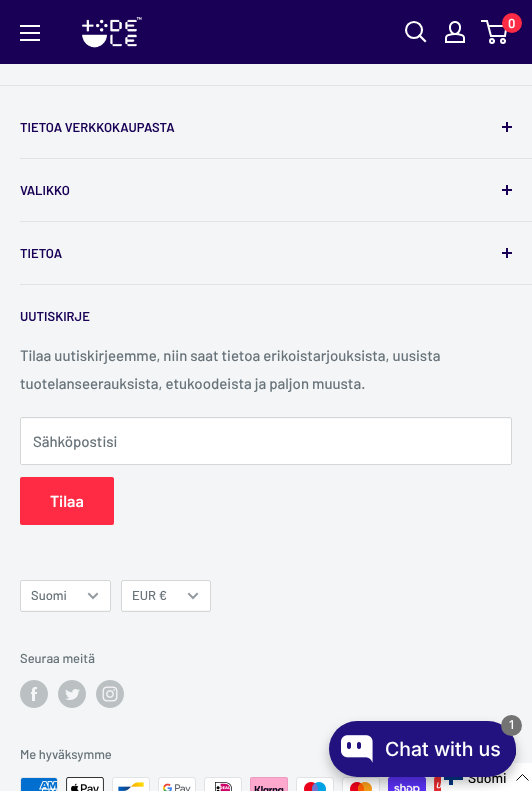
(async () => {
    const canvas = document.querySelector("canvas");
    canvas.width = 532;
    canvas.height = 791;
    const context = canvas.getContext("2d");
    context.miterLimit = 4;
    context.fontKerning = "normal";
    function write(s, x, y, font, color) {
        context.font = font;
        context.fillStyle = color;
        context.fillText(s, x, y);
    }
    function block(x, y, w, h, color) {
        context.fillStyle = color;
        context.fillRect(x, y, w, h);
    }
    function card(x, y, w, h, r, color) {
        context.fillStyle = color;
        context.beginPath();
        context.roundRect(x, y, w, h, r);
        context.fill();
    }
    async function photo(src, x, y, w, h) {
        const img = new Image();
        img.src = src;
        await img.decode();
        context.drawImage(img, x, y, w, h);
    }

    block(0, 0, 532, 791, "rgb(243, 245, 246)");
    block(0, 0, 532, 64, "rgb(25, 0, 86)");
    await photo("media/1.png", 82, 17, 60, 31);
    context.beginPath();
    context.moveTo(425, 41);
    context.lineTo(419.5, 35.5);
    context.strokeStyle = "rgb(255, 255, 255)";
    context.lineWidth = 2.1;
    context.lineCap = "square";
    context.stroke();
    context.beginPath();
    context.arc(414, 30, 8, 0, Math.PI * 2);
    context.stroke();
    await photo("media/2.png", 445, 21, 20, 22);
    context.beginPath();
    context.arc(492, 41, 2, 0, Math.PI * 2);
    context.lineWidth = 2;
    context.stroke();
    context.beginPath();
    context.arc(503, 41, 2, 0, Math.PI * 2);
    context.stroke();
    context.beginPath();
    context.moveTo(488.5, 26);
    context.lineTo(506.5, 26);
    context.lineTo(505, 36);
    context.lineTo(491, 36);
    context.lineTo(487, 21);
    context.lineTo(481, 21);
    context.lineCap = "butt";
    context.stroke();
    context.fillStyle = "rgb(255, 43, 68)";
    context.beginPath();
    context.arc(512, 23, 10, 0, Math.PI * 2);
    context.fill();
    write("0", 508, 28, "600 13px Barlow", "rgb(255, 255, 255)");
    await photo("media/3.png", 20, 25, 20, 16);
    block(0, 85, 532, 1, "rgb(225, 227, 228)");
    block(20, 158, 512, 1, "rgb(225, 227, 228)");
    write("TIETOA VERKKOKAUPASTA", 20, 132, "600 13px Barlow", "rgb(25, 0, 86)");
    block(506, 122, 2, 10, "rgb(25, 0, 86)");
    block(502, 126, 10, 2, "rgb(25, 0, 86)");
    block(20, 221, 512, 1, "rgb(225, 227, 228)");
    write("VALIKKO", 20, 195, "600 13px Barlow", "rgb(25, 0, 86)");
    block(506, 185, 2, 10, "rgb(25, 0, 86)");
    block(502, 189, 10, 2, "rgb(25, 0, 86)");
    block(20, 284, 512, 1, "rgb(225, 227, 228)");
    write("TIETOA", 20, 258, "600 13px Barlow", "rgb(25, 0, 86)");
    block(506, 248, 2, 10, "rgb(25, 0, 86)");
    block(502, 252, 10, 2, "rgb(25, 0, 86)");
    write("UUTISKIRJE", 20, 321, "600 13px Barlow", "rgb(25, 0, 86)");
    write("Tilaa uutiskirjeemme, niin saat tietoa erikoistarjouksista, uusista", 20, 361, "500 15px Barlow", "rgb(103, 114, 121)");
    write("tuotelanseerauksista, etukoodeista ja paljon muusta.", 20, 389, "500 15px Barlow", "rgb(103, 114, 121)");
    card(20, 417, 492, 48, 2, "rgb(255, 255, 255)");
    context.fillStyle = "rgb(248, 248, 248)";
    context.beginPath();
    context.moveTo(22, 419);
    context.lineTo(510, 419);
    context.bezierCurveTo(511, 419, 511, 419, 511, 420);
    context.bezierCurveTo(511, 419, 511, 418, 510, 418);
    context.lineTo(21, 418);
    context.lineTo(21, 420);
    context.bezierCurveTo(21, 419, 21, 419, 22, 419);
    context.closePath();
    context.fill();
    context.beginPath();
    context.roundRect(20.5, 417.5, 491, 47, 1.5);
    context.strokeStyle = "rgb(212, 214, 216)";
    context.lineWidth = 1;
    context.stroke();
    write("Sähköpostisi", 33, 447, "500 15px Barlow", "rgb(103, 114, 121)");
    card(20, 477, 94, 48, 2, "rgb(255, 43, 68)");
    write("Tilaa", 50, 507, "600 16px Barlow", "rgb(255, 255, 255)");
    card(20, 580, 91, 32, 2, "rgb(255, 255, 255)");
    context.fillStyle = "rgb(246, 247, 247)";
    context.beginPath();
    context.moveTo(21, 609);
    context.bezierCurveTo(21, 610, 21, 611, 22, 611);
    context.lineTo(109, 611);
    context.bezierCurveTo(110, 611, 110, 610, 110, 609);
    context.bezierCurveTo(110, 610, 110, 610, 109, 610);
    context.lineTo(22, 610);
    context.bezierCurveTo(21, 610, 21, 610, 21, 609);
    context.closePath();
    context.fill();
    context.beginPath();
    context.roundRect(20.5, 580.5, 90, 31, 1.5);
    context.stroke();
    write("Suomi", 31, 600, "500 13px Barlow", "rgb(103, 114, 121)");
    context.beginPath();
    context.moveTo(97, 594);
    context.lineTo(93, 598);
    context.lineTo(89, 594);
    context.strokeStyle = "rgb(149, 156, 161)";
    context.lineWidth = 2;
    context.lineCap = "square";
    context.stroke();
    card(121, 580, 90, 32, 2, "rgb(255, 255, 255)");
    context.fillStyle = "rgb(246, 247, 247)";
    context.beginPath();
    context.moveTo(122, 609);
    context.bezierCurveTo(122, 610, 122, 611, 123, 611);
    context.lineTo(209, 611);
    context.bezierCurveTo(210, 611, 210, 610, 210, 609);
    context.bezierCurveTo(210, 610, 210, 610, 209, 610);
    context.lineTo(123, 610);
    context.bezierCurveTo(122, 610, 122, 610, 122, 609);
    context.closePath();
    context.fill();
    context.beginPath();
    context.roundRect(121.5, 580.5, 89, 31, 1.5);
    context.strokeStyle = "rgb(212, 214, 216)";
    context.lineWidth = 1;
    context.stroke();
    write("EUR €", 132, 600, "500 13px Barlow", "rgb(103, 114, 121)");
    context.beginPath();
    context.moveTo(197, 594);
    context.lineTo(193, 598);
    context.lineTo(189, 594);
    context.strokeStyle = "rgb(149, 156, 161)";
    context.lineWidth = 2;
    context.stroke();
    write("Seuraa meitä", 20, 663, "500 13px Barlow", "rgb(103, 114, 121)");
    await photo("media/4.png", 20, 680, 28, 28);
    await photo("media/5.png", 58, 680, 28, 28);
    await photo("media/6.png", 96, 680, 28, 28);
    write("Me hyväksymme", 20, 759, "500 13px Barlow", "rgb(103, 114, 121)");
    await photo("media/7.png", 20, 777, 38, 14);
    await photo("media/8.png", 66, 777, 38, 14);
    await photo("media/9.png", 112, 777, 38, 14);
    await photo("media/10.png", 158, 777, 38, 14);
    await photo("media/11.png", 204, 777, 38, 14);
    await photo("media/12.png", 250, 777, 38, 14);
    await photo("media/13.png", 296, 777, 38, 14);
    await photo("media/14.png", 342, 777, 38, 14);
    await photo("media/15.png", 388, 777, 38, 14);
    await photo("media/16.png", 434, 777, 7, 14);
    await photo("media/18.png", 512, 747, 4, 15);
    block(441, 763, 91, 28, "rgb(255, 255, 255)");
    block(444, 777, 19, 3, "rgb(0, 53, 128)");
    block(449, 771, 4, 14, "rgb(0, 53, 128)");
    context.beginPath();
    context.moveTo(528.5, 780.5);
    context.lineTo(522.5, 774.5);
    context.lineTo(516.5, 780.5);
    context.strokeStyle = "rgb(0, 0, 0)";
    context.lineWidth = 1;
    context.lineCap = "butt";
    context.stroke();
    context.fillStyle = "rgba(0, 0, 0, 0.25)";
    context.filter = "blur(6px)";
    context.beginPath();
    context.roundRect(329, 727, 187, 56, 28);
    context.fill();
    context.filter = "none";
    write("Suomi", 468, 783, "500 14px Barlow", "rgb(0, 0, 0)");
    card(329, 721, 187, 56, 28, "rgb(34, 18, 128)");
    context.fillStyle = "rgb(115, 115, 115)";
    context.beginPath();
    context.arc(511.5, 725.5, 10.5, 0, Math.PI * 2);
    context.fill();
    write("1", 509, 729, "500 12px Inter", "rgb(255, 255, 255)");
    await photo("media/17.png", 341, 735, 32, 28);
    write("Chat with us", 385, 756, "500 19.5px Inter", "rgb(255, 255, 255)");
})();
